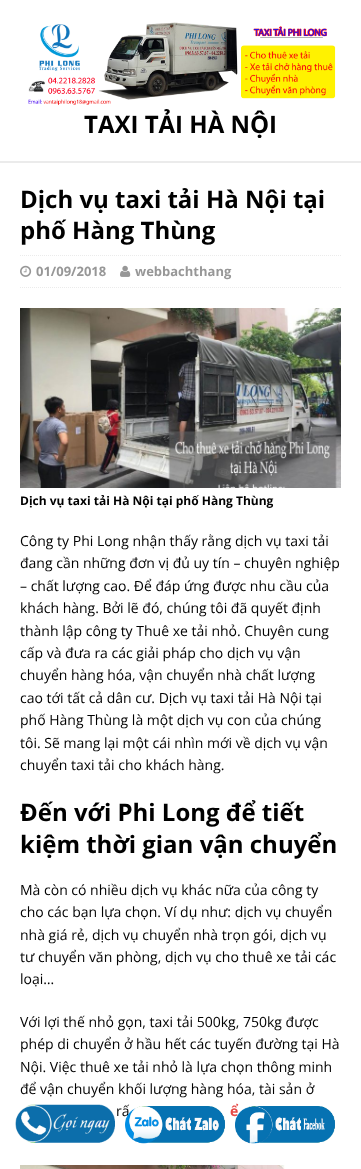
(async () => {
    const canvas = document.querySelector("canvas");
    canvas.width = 361;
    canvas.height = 1169;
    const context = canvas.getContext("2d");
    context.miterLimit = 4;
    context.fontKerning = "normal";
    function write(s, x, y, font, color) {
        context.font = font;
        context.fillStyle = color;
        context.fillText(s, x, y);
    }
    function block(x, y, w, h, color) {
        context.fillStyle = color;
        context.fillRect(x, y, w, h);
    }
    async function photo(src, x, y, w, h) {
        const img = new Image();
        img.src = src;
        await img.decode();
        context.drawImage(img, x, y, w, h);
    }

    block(0, 0, 361, 1169, "rgb(255, 255, 255)");
    block(0, 161, 361, 2, "rgb(235, 235, 235)");
    await photo("media/1.png", 28, 22, 308, 83);
    write("TAXI TẢI HÀ NỘI", 84, 133, "bold 24px Open Sans", "rgb(0, 0, 0)");
    write("Dịch vụ taxi tải Hà Nội tại", 20, 208, "bold 24px Open Sans", "rgb(0, 0, 0)");
    write("phố Hàng Thùng", 20, 239, "bold 24px Open Sans", "rgb(0, 0, 0)");
    context.beginPath();
    context.moveTo(20, 255.5);
    context.lineTo(341, 255.5);
    context.strokeStyle = "rgb(235, 235, 235)";
    context.setLineDash([1, 1]);
    context.stroke();
    context.beginPath();
    context.moveTo(20, 287.5);
    context.lineTo(341, 287.5);
    context.stroke();
    await photo("media/2.png", 20, 265, 12, 12);
    write("01/09/2018", 36, 276, "bold 13px Open Sans", "rgb(151, 151, 151)");
    await photo("media/3.png", 120, 265, 11, 12);
    write("webbachthang", 135, 276, "bold 13px Open Sans", "rgb(151, 151, 151)");
    await photo("media/4.png", 20, 308, 321, 180);
    write("Dịch vụ taxi tải Hà Nội tại phố Hàng Thùng", 20, 505, "bold 12px Open Sans", "rgb(0, 0, 0)");
    write("Công ty Phi Long nhận thấy rằng dịch vụ taxi tải", 20, 546, "14px Open Sans", "rgb(0, 0, 0)");
    write("đang cần những đơn vị đủ uy tín – chuyên nghiệp", 20, 568, "14px Open Sans", "rgb(0, 0, 0)");
    write("– chất lượng cao. Để đáp ứng được nhu cầu của", 20, 591, "14px Open Sans", "rgb(0, 0, 0)");
    write("khách hàng. Bởi lẽ đó, chúng tôi đã quyết định", 20, 613, "14px Open Sans", "rgb(0, 0, 0)");
    write("thành lập công ty Thuê xe tải nhỏ. Chuyên cung", 20, 636, "14px Open Sans", "rgb(0, 0, 0)");
    write("cấp và đưa ra các giải pháp cho dịch vụ vận", 20, 658, "14px Open Sans", "rgb(0, 0, 0)");
    write("chuyển hàng hóa, vận chuyển nhà chất lượng", 20, 680, "14px Open Sans", "rgb(0, 0, 0)");
    write("cao tới tất cả dân cư. Dịch vụ taxi tải Hà Nội tại", 20, 703, "14px Open Sans", "rgb(0, 0, 0)");
    write("phố Hàng Thùng là một dịch vụ con của chúng", 20, 725, "14px Open Sans", "rgb(0, 0, 0)");
    write("tôi. Sẽ mang lại một cái nhìn mới về dịch vụ vận", 20, 748, "14px Open Sans", "rgb(0, 0, 0)");
    write("chuyển taxi tải cho khách hàng.", 20, 770, "14px Open Sans", "rgb(0, 0, 0)");
    write("Đến với Phi Long để tiết", 20, 821, "bold 24px Open Sans", "rgb(0, 0, 0)");
    write("kiệm thời gian vận chuyển", 20, 853, "bold 24px Open Sans", "rgb(0, 0, 0)");
    write("Mà còn có nhiều dịch vụ khác nữa của công ty", 20, 895, "14px Open Sans", "rgb(0, 0, 0)");
    write("cho các bạn lựa chọn. Ví dụ như: dịch vụ chuyển", 20, 917, "14px Open Sans", "rgb(0, 0, 0)");
    write("nhà giá rẻ, dịch vụ chuyển nhà trọn gói, dịch vụ", 20, 940, "14px Open Sans", "rgb(0, 0, 0)");
    write("tư chuyển văn phòng, dịch vụ cho thuê xe tải các", 20, 962, "14px Open Sans", "rgb(0, 0, 0)");
    write("loại…", 20, 984, "14px Open Sans", "rgb(0, 0, 0)");
    write("Với lợi thế nhỏ gọn, taxi tải 500kg, 750kg được", 20, 1027, "14px Open Sans", "rgb(0, 0, 0)");
    write("phép di chuyển ở hầu hết các tuyến đường tại Hà", 20, 1049, "14px Open Sans", "rgb(0, 0, 0)");
    write("Nội. Việc thuê xe tải nhỏ là lựa chọn thông minh", 20, 1072, "14px Open Sans", "rgb(0, 0, 0)");
    write("để vận chuyển khối lượng hàng hóa, tài sản ở", 20, 1094, "14px Open Sans", "rgb(0, 0, 0)");
    write("rấ", 116, 1116, "14px Open Sans", "rgb(0, 0, 0)");
    write("ể", 230, 1116, "bold 14px Open Sans", "rgb(230, 73, 70)");
    await photo("media/5.png", 20, 1165, 265, 4);
    await photo("media/6.png", 15, 1104, 100, 39);
    await photo("media/7.png", 125, 1106, 100, 38);
    await photo("media/8.png", 235, 1106, 100, 38);
})();
